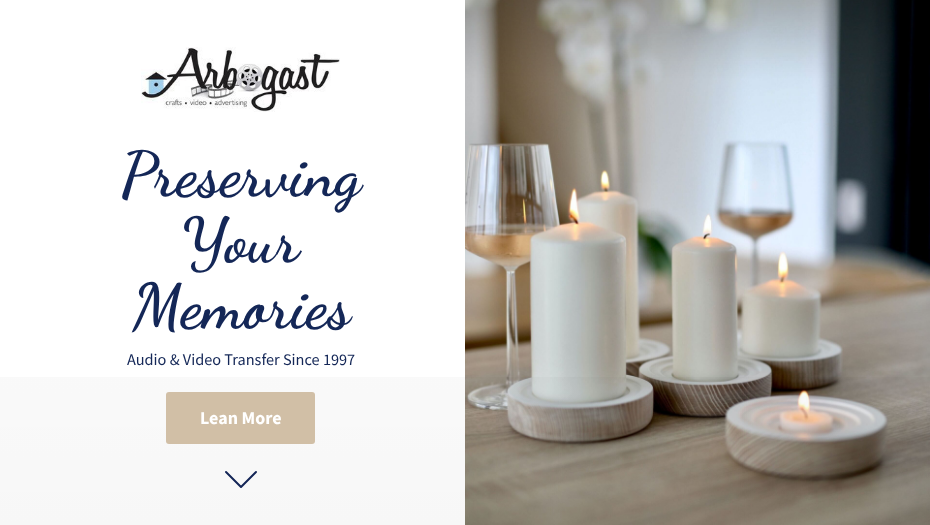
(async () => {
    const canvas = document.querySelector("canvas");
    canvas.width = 930;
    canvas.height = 525;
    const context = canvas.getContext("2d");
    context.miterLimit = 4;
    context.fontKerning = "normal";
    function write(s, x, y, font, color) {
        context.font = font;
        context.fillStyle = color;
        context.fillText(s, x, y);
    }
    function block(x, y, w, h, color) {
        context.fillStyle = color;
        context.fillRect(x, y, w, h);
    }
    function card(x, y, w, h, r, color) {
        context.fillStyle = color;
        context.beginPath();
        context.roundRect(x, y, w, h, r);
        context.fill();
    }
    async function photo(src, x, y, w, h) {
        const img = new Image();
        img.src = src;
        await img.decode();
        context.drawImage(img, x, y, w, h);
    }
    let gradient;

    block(0, 0, 930, 525, "rgb(255, 255, 255)");
    await photo("media/2.png", 465, 0, 465, 525);
    gradient = context.createLinearGradient(465, 0, 465, 525);
    gradient.addColorStop(0, "rgba(0, 0, 0, 0)");
    gradient.addColorStop(1, "rgba(0, 0, 0, 0.03)");
    context.fillStyle = gradient;
    context.fillRect(0, 377, 930, 148);
    await photo("media/1.png", 141, 47, 199, 65);
    write("Preserving", 120, 195, "bold 63px Dancing Script", "rgb(20, 39, 87)");
    write("Your", 182, 261, "bold 63px Dancing Script", "rgb(20, 39, 87)");
    write("Memories", 132, 327, "bold 63px Dancing Script", "rgb(20, 39, 87)");
    write("Audio & Video Transfer Since 1997", 127, 365, "16.25px Source Sans Pro", "rgb(20, 39, 87)");
    card(166, 392, 149, 52, 3, "rgb(209, 191, 166)");
    write("Lean More", 200, 424, "bold 18px Source Sans Pro", "rgb(255, 255, 255)");
    context.beginPath();
    context.moveTo(256, 472);
    context.lineTo(241, 487);
    context.lineTo(226, 472);
    context.strokeStyle = "rgb(20, 38, 87)";
    context.lineWidth = 2;
    context.lineCap = "round";
    context.lineJoin = "round";
    context.stroke();
})();
